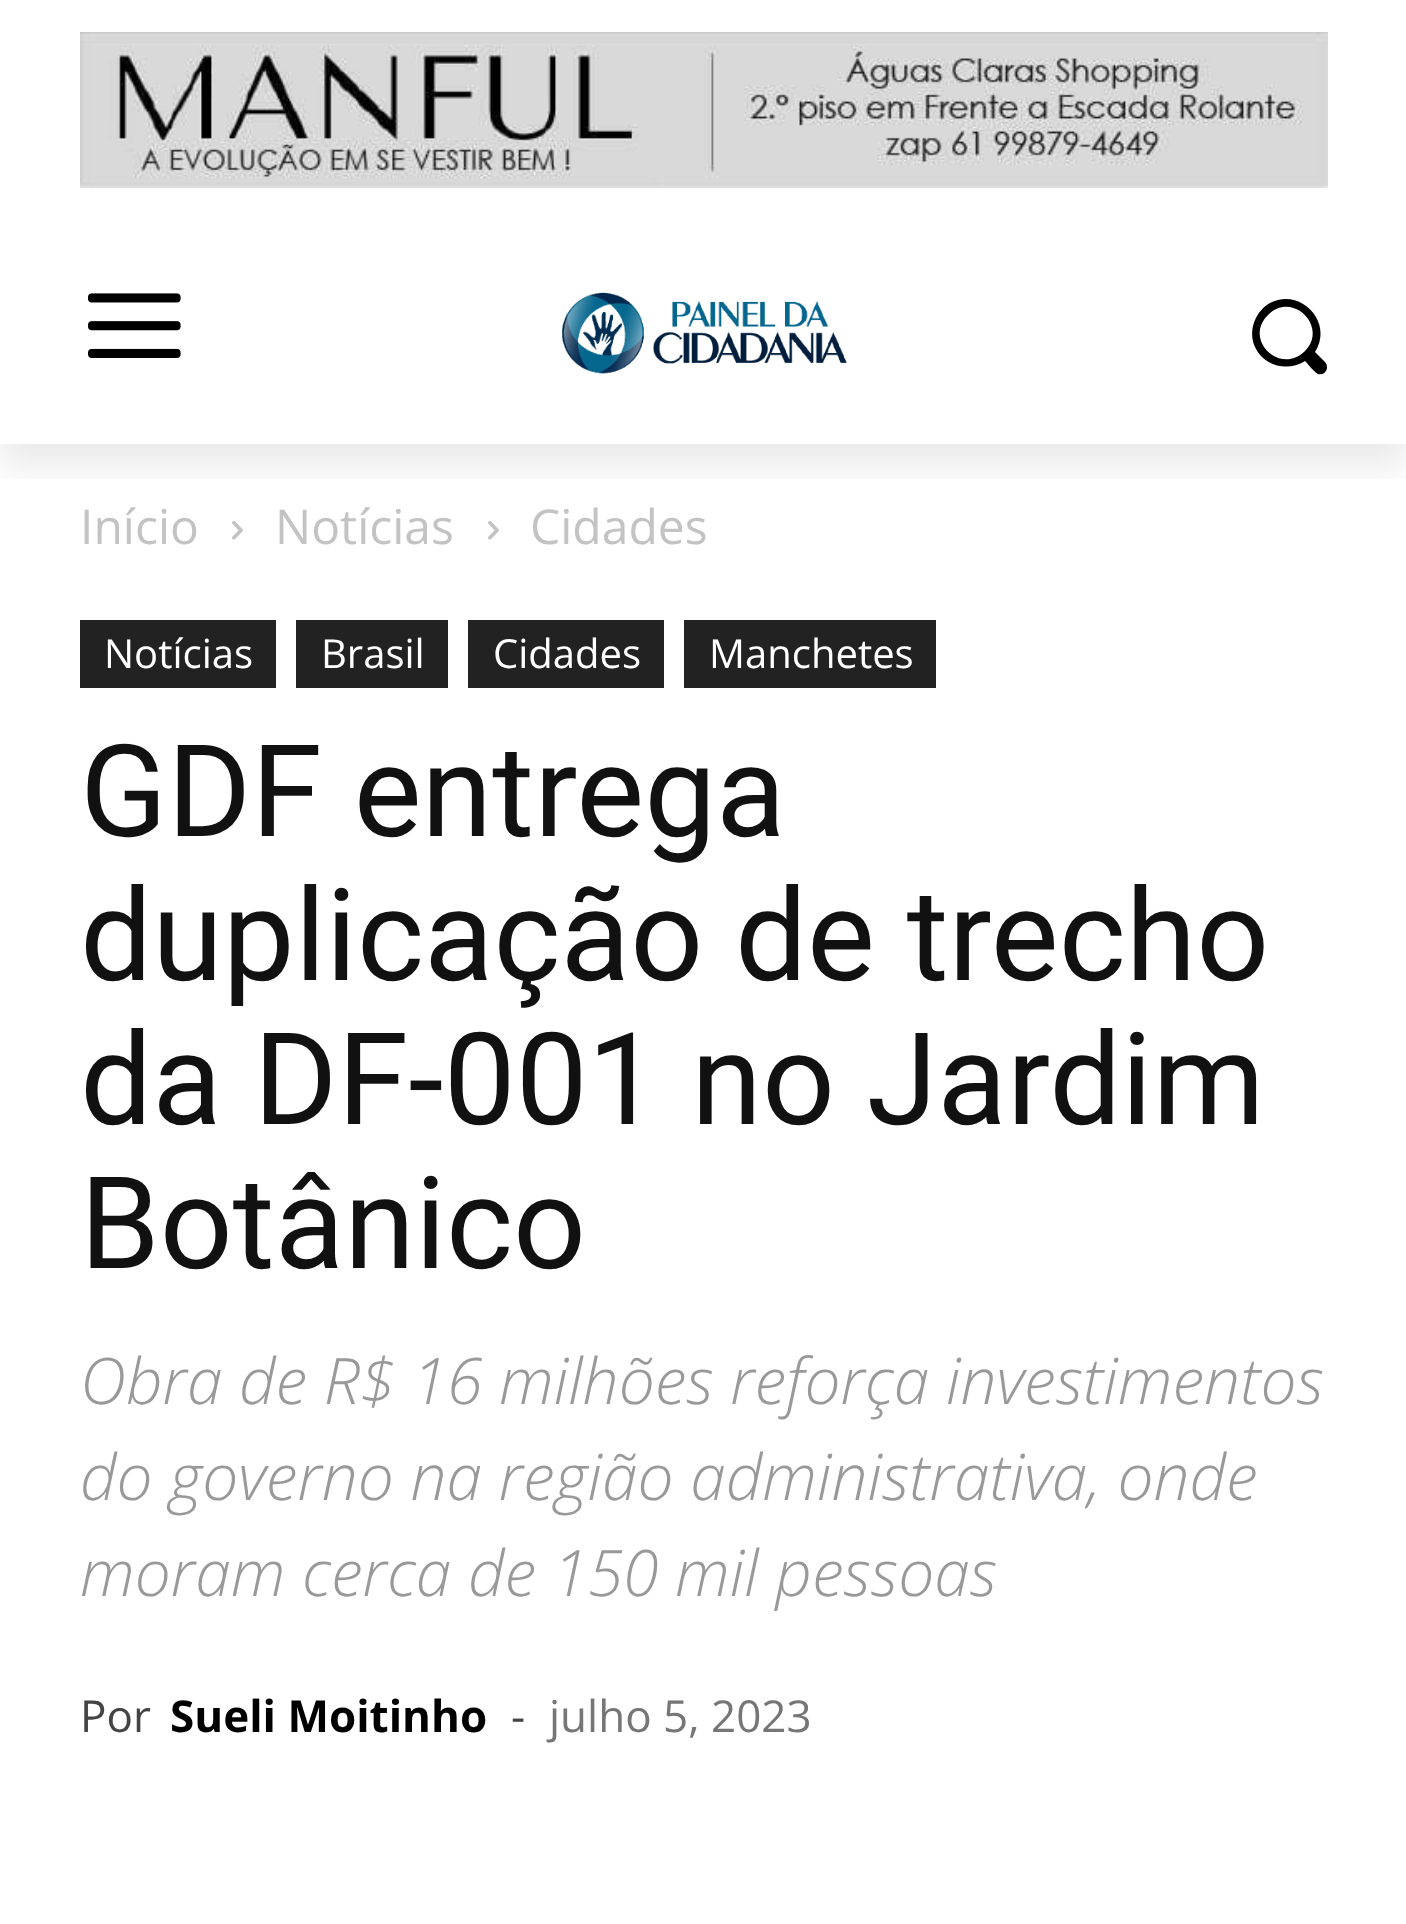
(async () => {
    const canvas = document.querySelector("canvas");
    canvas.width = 1406;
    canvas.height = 1924;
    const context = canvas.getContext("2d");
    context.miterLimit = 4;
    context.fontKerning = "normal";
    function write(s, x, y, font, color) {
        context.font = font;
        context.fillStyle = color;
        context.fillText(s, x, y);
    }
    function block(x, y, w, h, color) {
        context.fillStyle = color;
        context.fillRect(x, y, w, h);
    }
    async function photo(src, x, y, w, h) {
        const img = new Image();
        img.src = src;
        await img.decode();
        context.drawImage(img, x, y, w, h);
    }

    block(0, 0, 1406, 1924, "rgb(255, 255, 255)");
    await photo("media/1.png", 80, 32, 1248, 156);
    await photo("media/2.png", 88, 293, 93, 65);
    await photo("media/3.png", 562, 292, 285, 82);
    context.fillStyle = "rgb(0, 0, 0)";
    context.beginPath();
    context.moveTo(1325, 362);
    context.lineTo(1315, 352);
    context.bezierCurveTo(1334, 323, 1301, 287, 1270, 303);
    context.bezierCurveTo(1263, 307, 1258, 313, 1255, 320);
    context.bezierCurveTo(1251, 329, 1251, 340, 1256, 349);
    context.bezierCurveTo(1265, 366, 1288, 372, 1305, 361);
    context.bezierCurveTo(1308, 364, 1314, 372, 1318, 374);
    context.bezierCurveTo(1325, 376, 1330, 368, 1325, 362);
    context.closePath();
    context.moveTo(1305, 351);
    context.bezierCurveTo(1280, 376, 1243, 339, 1268, 315);
    context.bezierCurveTo(1292, 290, 1329, 327, 1305, 351);
    context.closePath();
    context.fill();
    context.save();
    context.beginPath();
    context.rect(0, 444, 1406, 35);
    context.clip();
    context.fillStyle = "rgba(0, 0, 0, 0.08)";
    context.filter = "blur(16px)";
    context.beginPath();
    context.rect(0, 24, 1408, 444);
    context.fill();
    context.filter = "none";
    context.restore();
    write("Início", 80, 544, "48px Open Sans", "rgb(195, 195, 195)");
    await photo("media/4.png", 232, 521, 11, 19);
    write("Notícias", 275, 544, "48px Open Sans", "rgb(195, 195, 195)");
    await photo("media/4.png", 488, 521, 11, 19);
    write("Cidades", 530, 544, "48px Open Sans", "rgb(195, 195, 195)");
    block(80, 620, 196, 68, "rgb(34, 34, 34)");
    write("Notícias", 104, 668, "40px Open Sans", "rgb(255, 255, 255)");
    block(296, 620, 152, 68, "rgb(34, 34, 34)");
    write("Brasil", 321, 668, "40px Open Sans", "rgb(255, 255, 255)");
    block(468, 620, 196, 68, "rgb(34, 34, 34)");
    write("Cidades", 493, 668, "40px Open Sans", "rgb(255, 255, 255)");
    block(684, 620, 252, 68, "rgb(34, 34, 34)");
    write("Manchetes", 709, 668, "40px Open Sans", "rgb(255, 255, 255)");
    write("GDF entrega", 80, 836, "128px Roboto", "rgb(17, 17, 17)");
    write("duplicação de trecho", 80, 980, "128px Roboto", "rgb(17, 17, 17)");
    write("da DF-001 no Jardim", 80, 1124, "128px Roboto", "rgb(17, 17, 17)");
    write("Botânico", 80, 1268, "128px Roboto", "rgb(17, 17, 17)");
    write("Obra de R$ 16 milhões reforça investimentos", 80, 1404, "italic 300 64px Open Sans", "rgb(153, 153, 153)");
    write("do governo na região administrativa, onde", 80, 1500, "italic 300 64px Open Sans", "rgb(153, 153, 153)");
    write("moram cerca de 150 mil pessoas", 80, 1596, "italic 300 64px Open Sans", "rgb(153, 153, 153)");
    write("Por", 80, 1732, "44px Open Sans", "rgb(68, 68, 68)");
    write("Sueli Moitinho", 170, 1732, "bold 44px Open Sans", "rgb(0, 0, 0)");
    write("-", 511, 1732, "44px Open Sans", "rgb(68, 68, 68)");
    write("julho 5, 2023", 549, 1732, "44px Open Sans", "rgb(118, 118, 118)");
})();
